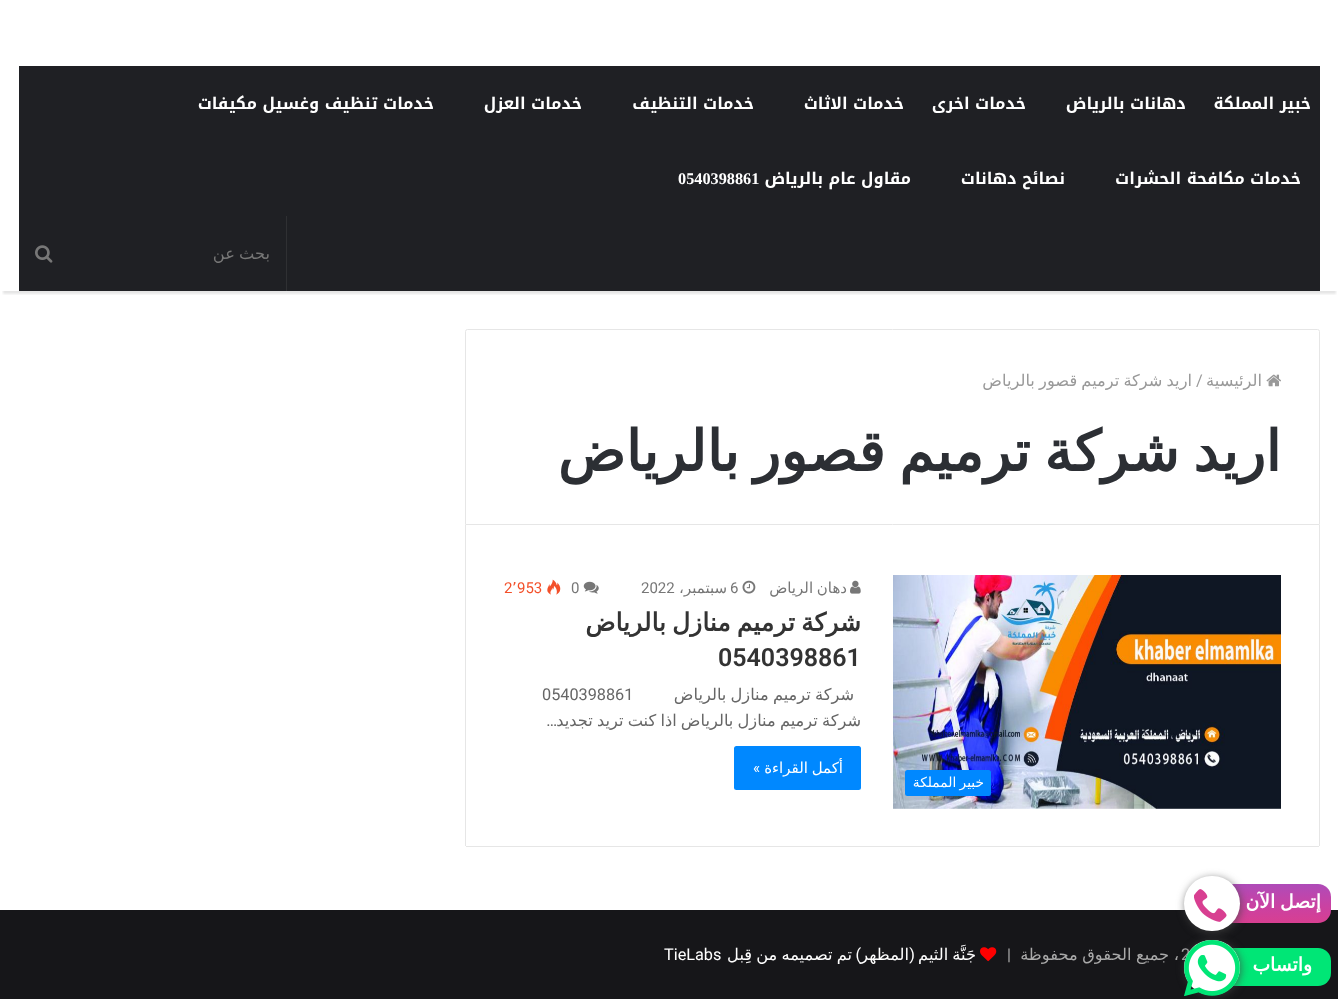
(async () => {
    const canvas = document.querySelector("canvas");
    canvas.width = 1338;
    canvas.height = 999;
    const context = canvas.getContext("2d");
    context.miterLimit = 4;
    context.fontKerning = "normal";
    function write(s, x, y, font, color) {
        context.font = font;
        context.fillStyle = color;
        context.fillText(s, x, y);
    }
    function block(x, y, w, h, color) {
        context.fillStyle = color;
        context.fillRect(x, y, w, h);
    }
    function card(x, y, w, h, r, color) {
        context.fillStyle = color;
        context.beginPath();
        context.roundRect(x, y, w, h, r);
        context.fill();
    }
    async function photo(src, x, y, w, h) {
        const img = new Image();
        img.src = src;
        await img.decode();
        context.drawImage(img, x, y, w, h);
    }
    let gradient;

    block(0, 0, 1338, 999, "rgb(255, 255, 255)");
    context.save();
    context.beginPath();
    context.rect(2, 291, 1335, 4);
    context.clip();
    context.fillStyle = "rgba(0, 0, 0, 0.1)";
    context.filter = "blur(1px)";
    context.beginPath();
    context.rect(3, -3, 1333, 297);
    context.fill();
    context.filter = "none";
    context.restore();
    block(19, 66, 1301, 225, "rgb(31, 32, 36)");
    context.direction = "rtl";
    write("خبير المملكة", 1311, 109, "bold 16.25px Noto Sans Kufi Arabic", "rgb(255, 255, 255)");
    write("دهانات بالرياض", 1186, 109, "bold 16.25px Noto Sans Kufi Arabic", "rgb(255, 255, 255)");
    write("خدمات اخرى", 1026, 109, "bold 16.25px Noto Sans Kufi Arabic", "rgb(255, 255, 255)");
    write("خدمات الاثاث", 904, 109, "bold 16.25px Noto Sans Kufi Arabic", "rgb(255, 255, 255)");
    write("خدمات التنظيف", 754, 109, "bold 16.25px Noto Sans Kufi Arabic", "rgb(255, 255, 255)");
    write("خدمات العزل", 582, 109, "bold 16.25px Noto Sans Kufi Arabic", "rgb(255, 255, 255)");
    write("خدمات تنظيف وغسيل مكيفات", 434, 109, "bold 16.25px Noto Sans Kufi Arabic", "rgb(255, 255, 255)");
    write("خدمات مكافحة الحشرات", 1301, 184, "bold 16.25px Noto Sans Kufi Arabic", "rgb(255, 255, 255)");
    write("نصائح دهانات", 1065, 184, "bold 16.25px Noto Sans Kufi Arabic", "rgb(255, 255, 255)");
    write("مقاول عام بالرياض", 911, 184, "bold 16.25px Noto Sans Kufi Arabic", "rgb(255, 255, 255)");
    context.direction = "ltr";
    write("0540398861", 678, 184, "bold 16.25px Liberation Serif", "rgb(255, 255, 255)");
    block(286, 216, 1, 75, "rgb(47, 48, 51)");
    context.wordSpacing = "-1px";
    context.direction = "rtl";
    write("بحث عن", 270, 259, "16.25px DejaVu Sans", "rgb(119, 119, 119)");
    await photo("media/1.png", 35, 245, 18, 18);
    context.beginPath();
    context.roundRect(465.5, 329.5, 854, 195, [2, 2, 0, 0]);
    context.strokeStyle = "rgb(230, 230, 230)";
    context.stroke();
    await photo("media/2.png", 1266, 374, 15, 13);
    context.wordSpacing = "0px";
    write("الرئيسية", 1262, 386, "16.25px DejaVu Sans", "rgb(153, 153, 153)");
    context.direction = "ltr";
    write("/", 1196, 386, "16.25px Roboto", "rgb(153, 153, 153)");
    context.wordSpacing = "-1px";
    context.direction = "rtl";
    write("اريد شركة ترميم قصور بالرياض", 1192, 386, "16.25px DejaVu Sans", "rgb(153, 153, 153)");
    context.wordSpacing = "-4px";
    write("اريد شركة ترميم قصور بالرياض", 1281, 471, "bold 56.25px DejaVu Sans", "rgb(44, 47, 52)");
    block(1319, 525, 1, 321, "rgb(230, 230, 230)");
    block(466, 846, 853, 1, "rgb(230, 230, 230)");
    block(465, 525, 1, 321, "rgb(230, 230, 230)");
    await photo("media/3.png", 850, 580, 11, 14);
    context.wordSpacing = "-1px";
    write("دهان الرياض", 847, 593, "15px DejaVu Sans", "rgb(119, 119, 119)");
    await photo("media/4.png", 742, 580, 14, 14);
    context.wordSpacing = "0px";
    context.direction = "ltr";
    write("6", 730, 593, "15px Roboto", "rgb(119, 119, 119)");
    context.direction = "rtl";
    write("سبتمبر،", 727, 593, "15px DejaVu Sans", "rgb(119, 119, 119)");
    context.direction = "ltr";
    write("2022", 641, 593, "15px Roboto", "rgb(119, 119, 119)");
    await photo("media/5.png", 583, 581, 16, 13);
    write("0", 571, 593, "15px Roboto", "rgb(119, 119, 119)");
    await photo("media/6.png", 547, 579, 14, 16);
    write("953", 517, 593, "15px Roboto", "rgb(243, 80, 42)");
    write("٬", 512, 593, "15px DejaVu Sans", "rgb(243, 80, 42)");
    write("2", 504, 593, "15px Roboto", "rgb(243, 80, 42)");
    context.wordSpacing = "-2px";
    context.direction = "rtl";
    write("شركة ترميم منازل بالرياض", 861, 631, "bold 25px DejaVu Sans", "rgb(51, 51, 51)");
    context.wordSpacing = "0px";
    context.direction = "ltr";
    write("0540398861", 718, 666, "600 25px Roboto", "rgb(51, 51, 51)");
    context.wordSpacing = "-1px";
    context.direction = "rtl";
    write("شركة ترميم منازل بالرياض", 854, 700, "16.25px DejaVu Sans", "rgb(102, 102, 102)");
    context.wordSpacing = "0px";
    context.direction = "ltr";
    write("0540398861", 542, 700, "16.25px Roboto", "rgb(102, 102, 102)");
    context.wordSpacing = "-1px";
    context.direction = "rtl";
    write("شركة ترميم منازل بالرياض اذا كنت تريد تجديد", 861, 726, "16.25px DejaVu Sans", "rgb(102, 102, 102)");
    context.wordSpacing = "0px";
    write("…", 557, 726, "16.25px Roboto", "rgb(102, 102, 102)");
    card(734, 746, 127, 44, 2.5, "rgb(0, 136, 255)");
    context.wordSpacing = "-1px";
    write("أكمل القراءة", 843, 773, "15px DejaVu Sans", "rgb(255, 255, 255)");
    context.wordSpacing = "0px";
    write("»", 760, 773, "15px Roboto", "rgb(255, 255, 255)");
    await photo("media/7.png", 893, 575, 388, 234);
    card(905, 770, 86, 26, 2.5, "rgb(0, 136, 255)");
    context.wordSpacing = "-1px";
    write("خبير المملكة", 984, 787, "13.75px DejaVu Sans", "rgb(255, 255, 255)");
    block(0, 910, 1338, 89, "rgb(22, 22, 25)");
    context.wordSpacing = "0px";
    context.direction = "ltr";
    write("2", 1181, 960, "16.25px Roboto", "rgb(170, 170, 170)");
    context.wordSpacing = "-0.5px";
    context.direction = "rtl";
    write("، جميع الحقوق محفوظة", 1179, 960, "16.25px DejaVu Sans", "rgb(170, 170, 170)");
    context.wordSpacing = "0px";
    write("|", 1011, 960, "16.25px Roboto", "rgb(170, 170, 170)");
    await photo("media/8.png", 980, 947, 17, 15);
    context.wordSpacing = "-1px";
    write("جَنَّة الثيم", 976, 960, "16.25px DejaVu Sans", "rgb(255, 255, 255)");
    context.wordSpacing = "0px";
    write("(", 915, 960, "16.25px Roboto", "rgb(255, 255, 255)");
    write(")", 861, 960, "16.25px Roboto", "rgb(255, 255, 255)");
    write("المظهر", 909, 960, "16.25px DejaVu Sans", "rgb(255, 255, 255)");
    context.wordSpacing = "-1px";
    write("تم تصميمه من قِبل", 852, 960, "16.25px DejaVu Sans", "rgb(255, 255, 255)");
    context.wordSpacing = "0px";
    context.direction = "ltr";
    write("TieLabs", 664, 960, "16.25px Roboto", "rgb(255, 255, 255)");
    gradient = context.createLinearGradient(1276, 923, 1276, 884);
    gradient.addColorStop(0, "rgb(216, 63, 145)");
    gradient.addColorStop(0.25, "rgb(208, 64, 155)");
    gradient.addColorStop(0.5, "rgb(199, 67, 165)");
    gradient.addColorStop(0.75, "rgb(187, 71, 175)");
    gradient.addColorStop(1, "rgb(174, 75, 184)");
    context.fillStyle = gradient;
    context.beginPath();
    context.roundRect(1221, 884, 110, 39, 13);
    context.fill();
    context.wordSpacing = "-1px";
    context.direction = "rtl";
    write("إتصل الآن", 1321, 908, "bold 18.75px DejaVu Sans", "rgb(255, 255, 255)");
    context.fillStyle = "rgba(68, 68, 68, 0.71)";
    context.filter = "blur(4px)";
    context.beginPath();
    context.roundRect(1185, 878, 56, 55, 27.5);
    context.fill();
    context.filter = "none";
    card(1184, 876, 56, 55, 27.5, "rgb(255, 255, 255)");
    await photo("media/9.png", 1194, 889, 33, 33);
    card(1221, 948, 110, 38, 13, "rgb(0, 230, 118)");
    context.wordSpacing = "0px";
    write("واتساب", 1312, 971, "bold 18.75px DejaVu Sans", "rgb(255, 255, 255)");
    context.fillStyle = "rgba(68, 68, 68, 0.71)";
    context.filter = "blur(4px)";
    context.beginPath();
    context.roundRect(1185, 941, 56, 55, 27.5);
    context.fill();
    context.filter = "none";
    card(1184, 940, 56, 55, 27.5, "rgb(255, 255, 255)");
    await photo("media/10.png", 1184, 940, 56, 56);
})();
